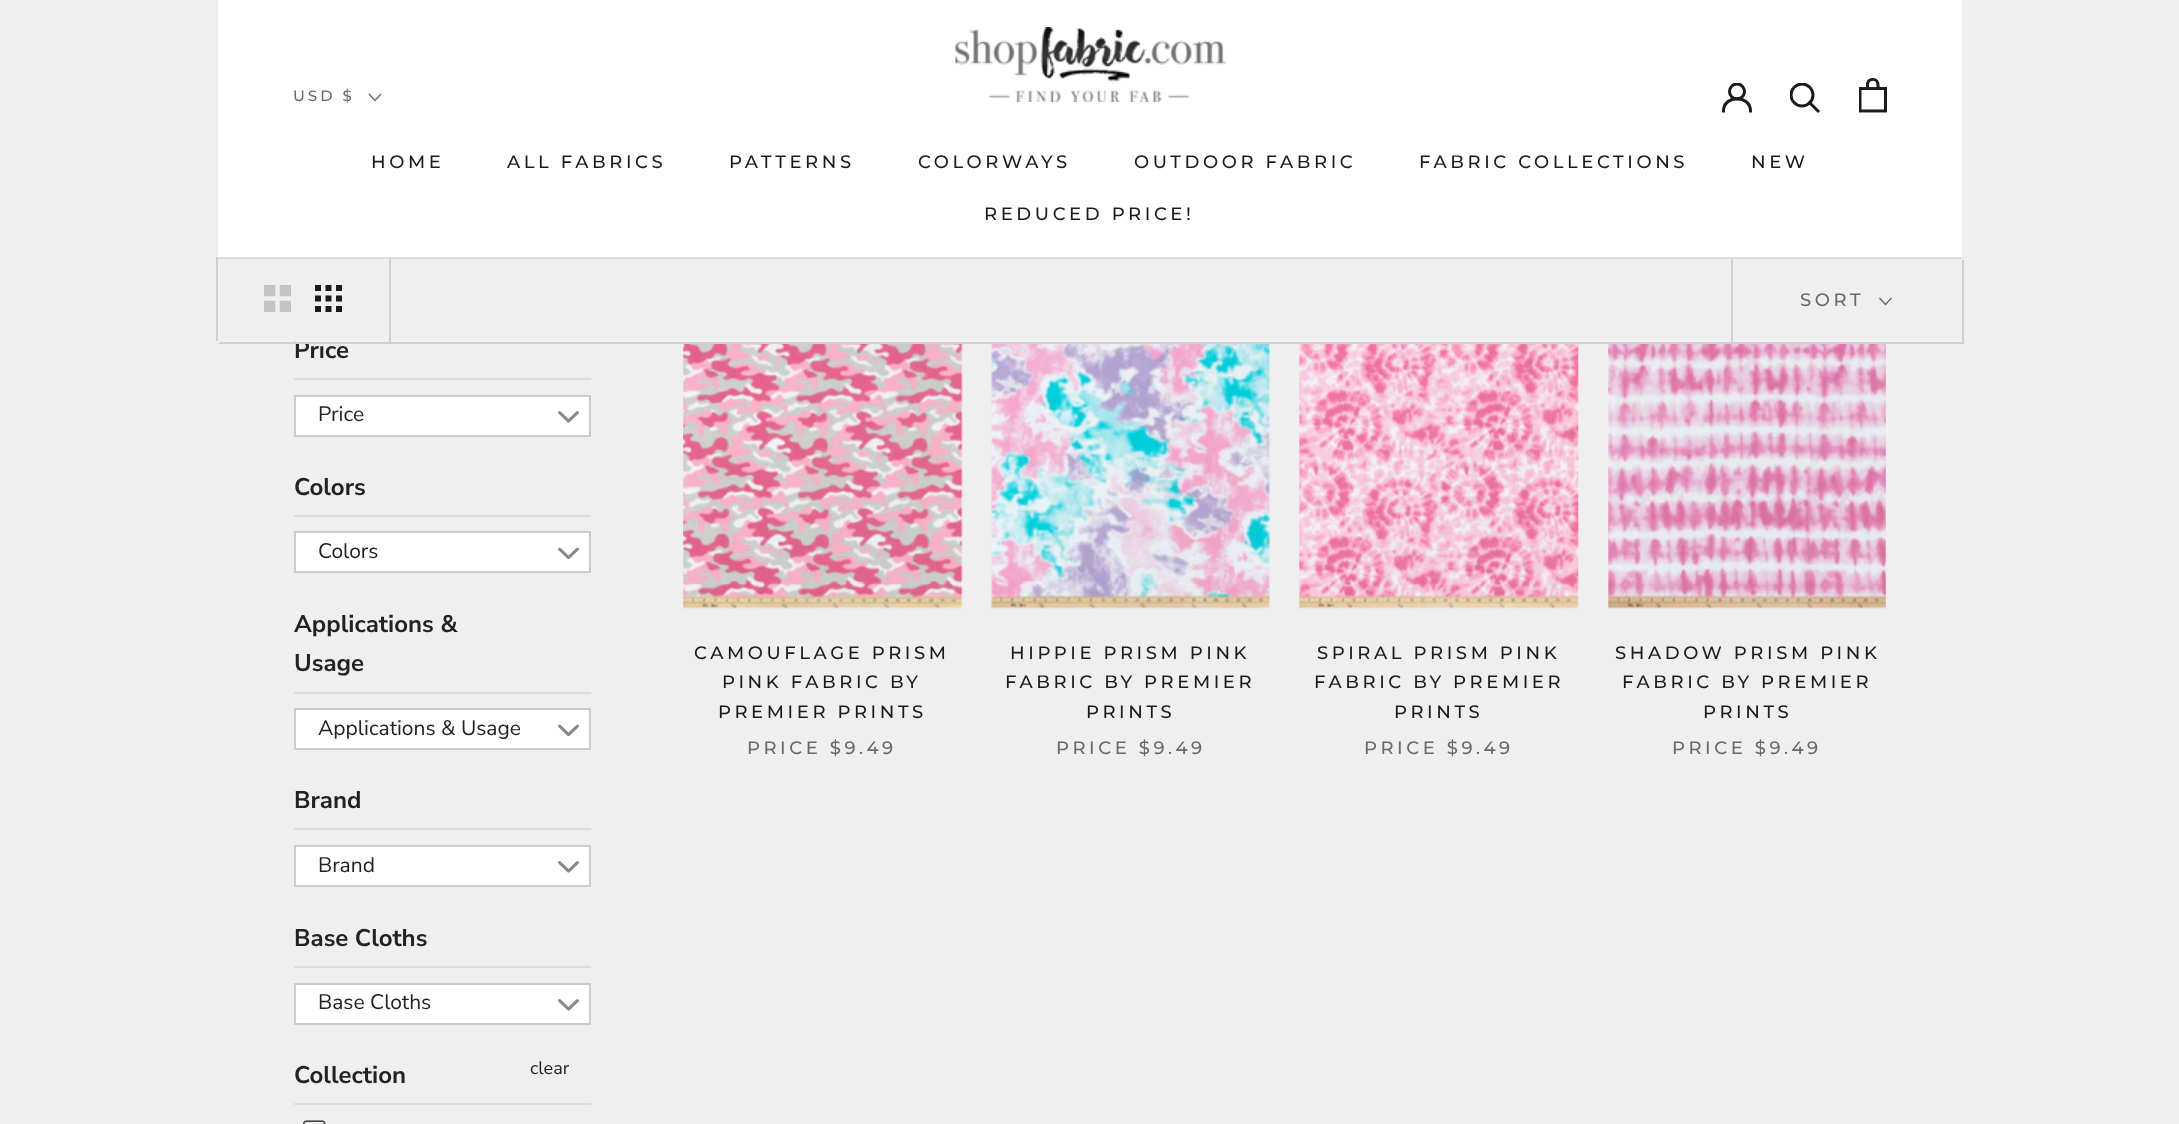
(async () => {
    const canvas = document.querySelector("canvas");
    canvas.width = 2179;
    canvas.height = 1124;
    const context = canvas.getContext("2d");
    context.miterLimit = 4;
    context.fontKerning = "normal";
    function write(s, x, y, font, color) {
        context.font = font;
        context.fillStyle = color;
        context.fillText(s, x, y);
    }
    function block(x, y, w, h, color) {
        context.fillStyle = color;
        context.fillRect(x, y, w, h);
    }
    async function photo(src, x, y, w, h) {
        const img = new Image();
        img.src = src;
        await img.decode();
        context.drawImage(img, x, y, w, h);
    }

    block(0, 0, 2179, 1124, "rgb(239, 239, 239)");
    block(218, 0, 1744, 257, "rgb(255, 255, 255)");
    write("Price", 294, 358, "bold 24px Nunito Sans", "rgb(34, 34, 34)");
    context.fillStyle = "rgb(207, 207, 207)";
    context.beginPath();
    context.moveTo(216, 257);
    context.lineTo(216, 341);
    context.lineTo(218, 341);
    context.lineTo(218, 258);
    context.lineTo(1961, 258);
    context.lineTo(1961, 257);
    context.closePath();
    context.fill();
    context.beginPath();
    context.moveTo(219, 342);
    context.lineTo(219, 344);
    context.lineTo(1964, 344);
    context.lineTo(1964, 260);
    context.lineTo(1962, 260);
    context.lineTo(1962, 342);
    context.closePath();
    context.fill();
    block(389, 258, 2, 84, "rgb(207, 207, 207)");
    block(1731, 258, 2, 84, "rgb(207, 207, 207)");
    block(218, 257, 1744, 2, "rgb(221, 221, 221)");
    await photo("media/1.png", 955, 27, 271, 75);
    context.beginPath();
    context.moveTo(1723.5, 111);
    context.bezierCurveTo(1723.5, 94.5, 1750.5, 94.5, 1750.5, 111);
    context.strokeStyle = "rgb(28, 27, 27)";
    context.lineWidth = 3;
    context.lineCap = "square";
    context.stroke();
    context.save();
    context.beginPath();
    context.rect(1722, 83, 30, 30);
    context.clip();
    context.beginPath();
    context.arc(1737, 91.5, 7.5, 0, Math.PI * 2);
    context.stroke();
    context.restore();
    context.beginPath();
    context.moveTo(1818, 111);
    context.lineTo(1809.5, 102.5);
    context.stroke();
    context.save();
    context.beginPath();
    context.rect(1790, 83, 31, 31);
    context.clip();
    context.beginPath();
    context.arc(1802, 95, 11, 0, Math.PI * 2);
    context.stroke();
    context.restore();
    await photo("media/2.png", 1859, 78, 28, 35);
    context.letterSpacing = "3px";
    write("USD $", 293, 101, "500 15px Montserrat", "rgb(106, 106, 106)");
    context.beginPath();
    context.moveTo(380.5, 94.5);
    context.lineTo(375, 100.5);
    context.lineTo(369.5, 94.5);
    context.strokeStyle = "rgb(106, 106, 106)";
    context.lineWidth = 1.5;
    context.stroke();
    context.letterSpacing = "3.6px";
    write("HOME", 371, 168, "500 18px Montserrat", "rgb(28, 27, 27)");
    write("ALL FABRICS", 507, 168, "500 18px Montserrat", "rgb(28, 27, 27)");
    write("PATTERNS", 729, 168, "500 18px Montserrat", "rgb(28, 27, 27)");
    write("COLORWAYS", 918, 168, "500 18px Montserrat", "rgb(28, 27, 27)");
    write("OUTDOOR FABRIC", 1134, 168, "500 18px Montserrat", "rgb(28, 27, 27)");
    write("FABRIC COLLECTIONS", 1419, 168, "500 18px Montserrat", "rgb(28, 27, 27)");
    write("NEW", 1751, 168, "500 18px Montserrat", "rgb(28, 27, 27)");
    write("REDUCED PRICE!", 984, 220, "500 18px Montserrat", "rgb(28, 27, 27)");
    block(296, 340, 28, 2, "rgb(239, 239, 239)");
    await photo("media/3.png", 264, 285, 27, 27);
    await photo("media/4.png", 315, 285, 27, 27);
    write("SORT", 1800, 306, "500 18px Montserrat", "rgb(106, 106, 106)");
    context.beginPath();
    context.moveTo(1891, 298.5);
    context.lineTo(1885.5, 304.5);
    context.lineTo(1880, 298.5);
    context.stroke();
    block(294, 378, 297, 2, "rgb(221, 221, 221)");
    context.fillStyle = "rgb(255, 255, 255)";
    context.beginPath();
    context.rect(295, 396, 295, 40);
    context.fill();
    context.strokeStyle = "rgb(204, 204, 204)";
    context.lineWidth = 2;
    context.stroke();
    context.letterSpacing = "0px";
    write("Price", 318, 421, "21px Nunito Sans", "rgb(34, 34, 34)");
    await photo("media/5.png", 558, 411, 21, 12);
    block(294, 515, 297, 2, "rgb(221, 221, 221)");
    write("Colors", 294, 495, "bold 24px Nunito Sans", "rgb(34, 34, 34)");
    context.fillStyle = "rgb(255, 255, 255)";
    context.beginPath();
    context.rect(295, 532, 295, 40);
    context.fill();
    context.stroke();
    write("Colors", 318, 558, "21px Nunito Sans", "rgb(34, 34, 34)");
    await photo("media/6.png", 558, 547, 21, 13);
    block(294, 692, 297, 2, "rgb(221, 221, 221)");
    write("Applications &", 294, 632, "bold 24px Nunito Sans", "rgb(34, 34, 34)");
    write("Usage", 294, 671, "bold 24px Nunito Sans", "rgb(34, 34, 34)");
    context.fillStyle = "rgb(255, 255, 255)";
    context.beginPath();
    context.rect(295, 709, 295, 40);
    context.fill();
    context.stroke();
    write("Applications & Usage", 318, 735, "21px Nunito Sans", "rgb(34, 34, 34)");
    await photo("media/6.png", 558, 724, 21, 13);
    block(294, 828, 297, 2, "rgb(221, 221, 221)");
    write("Brand", 294, 808, "bold 24px Nunito Sans", "rgb(34, 34, 34)");
    context.fillStyle = "rgb(255, 255, 255)";
    context.beginPath();
    context.rect(295, 846, 295, 40);
    context.fill();
    context.stroke();
    write("Brand", 318, 872, "21px Nunito Sans", "rgb(34, 34, 34)");
    await photo("media/5.png", 558, 861, 21, 12);
    block(294, 966, 297, 2, "rgb(221, 221, 221)");
    write("Base Cloths", 294, 946, "bold 24px Nunito Sans", "rgb(34, 34, 34)");
    context.fillStyle = "rgb(255, 255, 255)";
    context.beginPath();
    context.rect(295, 984, 295, 40);
    context.fill();
    context.stroke();
    write("Base Cloths", 318, 1009, "21px Nunito Sans", "rgb(34, 34, 34)");
    await photo("media/5.png", 558, 999, 21, 12);
    block(294, 1103, 297, 2, "rgb(221, 221, 221)");
    write("Collection", 294, 1083, "bold 24px Nunito Sans", "rgb(34, 34, 34)");
    write("clear", 530, 1074, "18px Nunito Sans", "rgb(34, 34, 34)");
    await photo("media/7.png", 303, 1120, 23, 4);
    await photo("media/8.png", 683, 344, 280, 265);
    context.letterSpacing = "3.6px";
    write("CAMOUFLAGE PRISM", 694, 659, "500 18px Montserrat", "rgb(28, 27, 27)");
    write("PINK FABRIC BY", 722, 688, "500 18px Montserrat", "rgb(28, 27, 27)");
    write("PREMIER PRINTS", 718, 718, "500 18px Montserrat", "rgb(28, 27, 27)");
    write("PRICE $9.49", 747, 754, "500 18px Montserrat", "rgb(106, 106, 106)");
    await photo("media/9.png", 991, 344, 279, 265);
    write("HIPPIE PRISM PINK", 1010, 659, "500 18px Montserrat", "rgb(28, 27, 27)");
    write("FABRIC BY PREMIER", 1005, 688, "500 18px Montserrat", "rgb(28, 27, 27)");
    write("PRINTS", 1086, 718, "500 18px Montserrat", "rgb(28, 27, 27)");
    write("PRICE $9.49", 1056, 754, "500 18px Montserrat", "rgb(106, 106, 106)");
    await photo("media/10.png", 1299, 344, 280, 265);
    write("SPIRAL PRISM PINK", 1317, 659, "500 18px Montserrat", "rgb(28, 27, 27)");
    write("FABRIC BY PREMIER", 1314, 688, "500 18px Montserrat", "rgb(28, 27, 27)");
    write("PRINTS", 1394, 718, "500 18px Montserrat", "rgb(28, 27, 27)");
    write("PRICE $9.49", 1364, 754, "500 18px Montserrat", "rgb(106, 106, 106)");
    await photo("media/11.png", 1608, 344, 278, 265);
    write("SHADOW PRISM PINK", 1615, 659, "500 18px Montserrat", "rgb(28, 27, 27)");
    write("FABRIC BY PREMIER", 1622, 688, "500 18px Montserrat", "rgb(28, 27, 27)");
    write("PRINTS", 1703, 718, "500 18px Montserrat", "rgb(28, 27, 27)");
    write("PRICE $9.49", 1672, 754, "500 18px Montserrat", "rgb(106, 106, 106)");
})();
